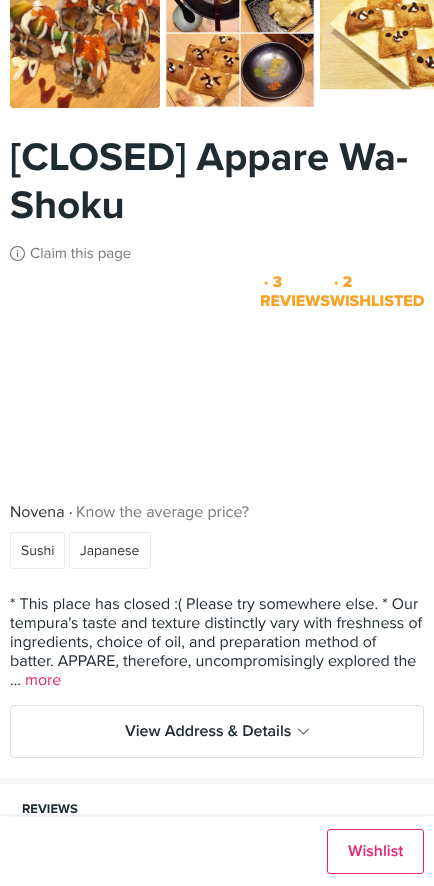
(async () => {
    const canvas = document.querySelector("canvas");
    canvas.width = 434;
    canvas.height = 886;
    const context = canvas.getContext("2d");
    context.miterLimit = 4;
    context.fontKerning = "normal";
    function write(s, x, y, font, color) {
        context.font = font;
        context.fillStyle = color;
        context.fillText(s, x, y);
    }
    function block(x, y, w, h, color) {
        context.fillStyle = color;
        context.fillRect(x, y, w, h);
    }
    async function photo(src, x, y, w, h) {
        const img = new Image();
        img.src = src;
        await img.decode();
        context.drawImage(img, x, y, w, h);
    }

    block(0, 0, 434, 886, "rgb(255, 255, 255)");
    await photo("media/1.png", 10, 0, 150, 108);
    await photo("media/2.png", 165, 0, 150, 108);
    await photo("media/3.png", 320, 0, 114, 91);
    write("[CLOSED] Appare Wa-", 10, 170, "bold 40px Proxima Nova", "rgb(31, 43, 48)");
    write("Shoku", 10, 218, "bold 40px Proxima Nova", "rgb(31, 43, 48)");
    await photo("media/4.png", 10, 246, 15, 15);
    write("Claim this page", 30, 258, "15px Proxima Nova", "rgb(119, 119, 119)");
    write("· 3", 264, 287, "800 16px Proxima Nova", "rgb(246, 163, 41)");
    write("REVIEWSWISHLISTED", 260, 306, "800 16px Proxima Nova", "rgb(246, 163, 41)");
    write("· 2", 334, 287, "800 16px Proxima Nova", "rgb(246, 163, 41)");
    write("Novena", 10, 517, "16px Proxima Nova", "rgb(51, 51, 51)");
    write("·", 69, 517, "16px Proxima Nova", "rgb(31, 43, 48)");
    write("Know the average price?", 76, 517, "16px Proxima Nova", "rgb(119, 119, 119)");
    context.beginPath();
    context.roundRect(10.5, 532.5, 54, 36, 2.5);
    context.strokeStyle = "rgb(235, 235, 235)";
    context.stroke();
    write("Sushi", 21, 555, "14px Proxima Nova", "rgb(51, 51, 51)");
    context.beginPath();
    context.roundRect(69.5, 532.5, 81, 36, 2.5);
    context.stroke();
    write("Japanese", 80, 555, "14px Proxima Nova", "rgb(51, 51, 51)");
    write("* This place has closed :( Please try somewhere else. * Our", 10, 609, "16px Proxima Nova", "rgb(31, 43, 48)");
    write("tempura's taste and texture distinctly vary with freshness of", 10, 628, "16px Proxima Nova", "rgb(31, 43, 48)");
    write("ingredients, choice of oil, and preparation method of", 10, 647, "16px Proxima Nova", "rgb(31, 43, 48)");
    write("batter. APPARE, therefore, uncompromisingly explored the", 10, 666, "16px Proxima Nova", "rgb(31, 43, 48)");
    write("...", 10, 685, "16px Proxima Nova", "rgb(31, 43, 48)");
    write("more", 25, 685, "16px Proxima Nova", "rgb(234, 36, 110)");
    context.beginPath();
    context.roundRect(10.5, 705.5, 413, 52, 3.5);
    context.strokeStyle = "rgb(223, 223, 223)";
    context.stroke();
    write("View Address & Details", 125, 736, "600 16px Proxima Nova", "rgb(31, 43, 48)");
    await photo("media/5.png", 298, 728, 11, 7);
    block(0, 778, 434, 6, "rgb(246, 246, 246)");
    write("REVIEWS", 22, 813, "bold 13px Proxima Nova", "rgb(31, 43, 48)");
    context.fillStyle = "rgba(0, 0, 0, 0.1)";
    context.filter = "blur(1px)";
    context.beginPath();
    context.rect(0, 815, 434, 70);
    context.fill();
    context.filter = "none";
    block(0, 816, 434, 70, "rgb(255, 255, 255)");
    block(10, 816, 414, 1, "rgb(245, 245, 245)");
    context.beginPath();
    context.roundRect(327.5, 829.5, 96, 44, 2.5);
    context.strokeStyle = "rgb(234, 36, 110)";
    context.stroke();
    write("Wishlist", 348, 856, "600 16px Proxima Nova", "rgb(234, 36, 110)");
})();
